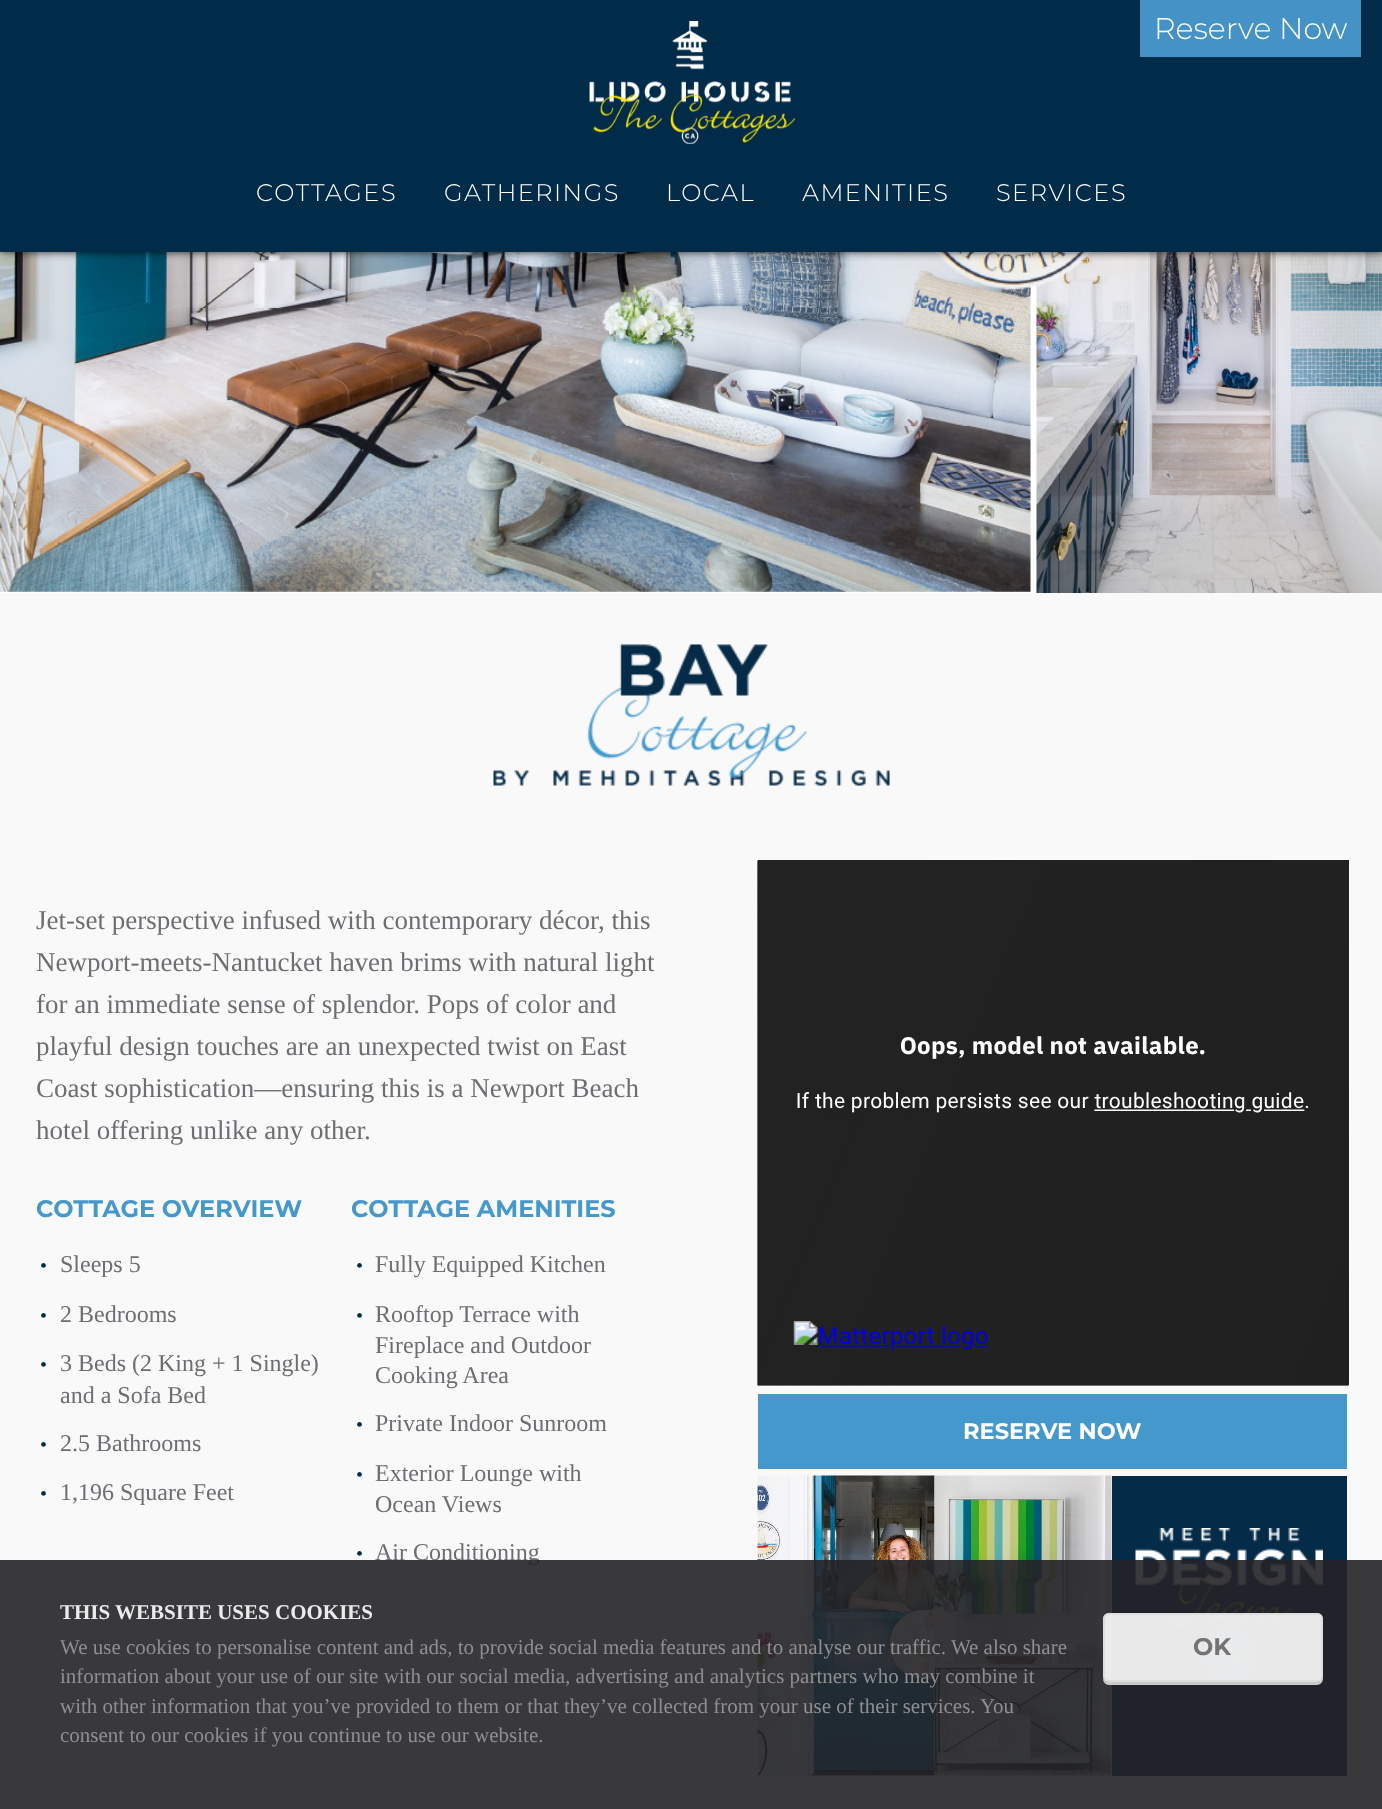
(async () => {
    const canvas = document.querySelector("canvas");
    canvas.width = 1382;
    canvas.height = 1809;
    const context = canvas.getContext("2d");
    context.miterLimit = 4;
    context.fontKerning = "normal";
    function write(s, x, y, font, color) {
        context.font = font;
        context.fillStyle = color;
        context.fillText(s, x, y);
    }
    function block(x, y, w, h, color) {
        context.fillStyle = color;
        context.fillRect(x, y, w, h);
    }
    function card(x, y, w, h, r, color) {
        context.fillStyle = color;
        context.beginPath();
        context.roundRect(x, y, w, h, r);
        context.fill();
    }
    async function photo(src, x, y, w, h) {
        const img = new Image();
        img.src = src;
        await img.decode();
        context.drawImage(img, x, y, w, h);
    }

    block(0, 0, 1382, 1809, "rgb(255, 255, 255)");
    await photo("media/2.png", 0, 252, 1031, 340);
    await photo("media/3.png", 1036, 252, 346, 341);
    await photo("media/4.png", 934, 252, 158, 39);
    context.fillStyle = "rgba(0, 0, 0, 0.8)";
    context.filter = "blur(4.5px)";
    context.beginPath();
    context.rect(0, 0, 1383, 252);
    context.fill();
    context.filter = "none";
    block(0, 0, 1382, 252, "rgb(0, 43, 73)");
    block(1140, 0, 221, 57, "rgb(68, 146, 198)");
    write("Reserve Now", 1154, 39, "300 30px Montserrat", "rgb(255, 255, 255)");
    await photo("media/1.png", 589, 21, 206, 123);
    context.letterSpacing = "1.5px";
    write("COTTAGES", 256, 201, "300 24px Montserrat", "rgb(255, 255, 255)");
    write("GATHERINGS", 444, 201, "300 24px Montserrat", "rgb(255, 255, 255)");
    write("LOCAL", 666, 201, "300 24px Montserrat", "rgb(255, 255, 255)");
    write("AMENITIES", 802, 201, "300 24px Montserrat", "rgb(255, 255, 255)");
    write("SERVICES", 996, 201, "300 24px Montserrat", "rgb(255, 255, 255)");
    block(0, 593, 1382, 1216, "rgb(249, 249, 249)");
    await photo("media/5.png", 493, 644, 397, 142);
    context.letterSpacing = "0px";
    write("Jet-set perspective infused with contemporary décor, this", 36, 929, "27px Liberation Serif", "rgb(109, 110, 113)");
    write("Newport-meets-Nantucket haven brims with natural light", 36, 971, "27px Liberation Serif", "rgb(109, 110, 113)");
    write("for an immediate sense of splendor. Pops of color and", 36, 1013, "27px Liberation Serif", "rgb(109, 110, 113)");
    write("playful design touches are an unexpected twist on East", 36, 1055, "27px Liberation Serif", "rgb(109, 110, 113)");
    write("Coast sophistication—ensuring this is a Newport Beach", 36, 1097, "27px Liberation Serif", "rgb(109, 110, 113)");
    write("hotel offering unlike any other.", 36, 1139, "27px Liberation Serif", "rgb(109, 110, 113)");
    write("COTTAGE OVERVIEW", 36, 1217, "bold 24px Montserrat", "rgb(69, 152, 204)");
    write("•", 40, 1272, "20px Liberation Serif", "rgb(4, 43, 72)");
    write("Sleeps 5", 60, 1272, "24px Liberation Serif", "rgb(109, 110, 113)");
    write("•", 40, 1322, "20px Liberation Serif", "rgb(4, 43, 72)");
    write("2 Bedrooms", 60, 1322, "24px Liberation Serif", "rgb(109, 110, 113)");
    write("•", 40, 1371, "20px Liberation Serif", "rgb(4, 43, 72)");
    write("3 Beds (2 King + 1 Single)", 60, 1371, "24px Liberation Serif", "rgb(109, 110, 113)");
    write("and a Sofa Bed", 60, 1403, "24px Liberation Serif", "rgb(109, 110, 113)");
    write("•", 40, 1451, "20px Liberation Serif", "rgb(4, 43, 72)");
    write("2.5 Bathrooms", 60, 1451, "24px Liberation Serif", "rgb(109, 110, 113)");
    write("•", 40, 1500, "20px Liberation Serif", "rgb(4, 43, 72)");
    write("1,196 Square Feet", 60, 1500, "24px Liberation Serif", "rgb(109, 110, 113)");
    write("COTTAGE AMENITIES", 351, 1217, "bold 24px Montserrat", "rgb(69, 152, 204)");
    write("•", 356, 1272, "20px Liberation Serif", "rgb(4, 43, 72)");
    write("Fully Equipped Kitchen", 375, 1272, "24px Liberation Serif", "rgb(109, 110, 113)");
    write("•", 356, 1322, "20px Liberation Serif", "rgb(4, 43, 72)");
    write("Rooftop Terrace with", 375, 1322, "24px Liberation Serif", "rgb(109, 110, 113)");
    write("Fireplace and Outdoor", 375, 1353, "24px Liberation Serif", "rgb(109, 110, 113)");
    write("Cooking Area", 375, 1383, "24px Liberation Serif", "rgb(109, 110, 113)");
    write("•", 356, 1431, "20px Liberation Serif", "rgb(4, 43, 72)");
    write("Private Indoor Sunroom", 375, 1431, "24px Liberation Serif", "rgb(109, 110, 113)");
    write("•", 356, 1481, "20px Liberation Serif", "rgb(4, 43, 72)");
    write("Exterior Lounge with", 375, 1481, "24px Liberation Serif", "rgb(109, 110, 113)");
    write("Ocean Views", 375, 1512, "24px Liberation Serif", "rgb(109, 110, 113)");
    write("•", 356, 1560, "20px Liberation Serif", "rgb(4, 43, 72)");
    write("Air Conditioning", 375, 1560, "24px Liberation Serif", "rgb(109, 110, 113)");
    await photo("media/6.png", 757, 860, 592, 526);
    block(758, 1394, 589, 75, "rgb(69, 152, 204)");
    write("RESERVE NOW", 963, 1439, "bold 22.5px Montserrat", "rgb(255, 255, 255)");
    await photo("media/7.png", 757, 1475, 178, 301);
    await photo("media/8.png", 934, 1475, 178, 301);
    block(1112, 1476, 235, 300, "rgb(4, 43, 72)");
    await photo("media/9.png", 1135, 1528, 188, 153);
    block(0, 1560, 1382, 249, "rgba(36, 36, 39, 0.9)");
    write("THIS WEBSITE USES COOKIES", 60, 1619, "bold 21px Liberation Serif", "rgb(235, 235, 236)");
    write("We use cookies to personalise content and ads, to provide social media features and to analyse our traffic. We also share", 60, 1654, "21px Liberation Serif", "rgb(143, 143, 144)");
    write("information about your use of our site with our social media, advertising and analytics partners who may combine it", 60, 1683, "21px Liberation Serif", "rgb(143, 143, 144)");
    write("with other information that you’ve provided to them or that they’ve collected from your use of their services. You", 60, 1713, "21px Liberation Serif", "rgb(143, 143, 144)");
    write("consent to our cookies if you continue to use our website.", 60, 1742, "21px Liberation Serif", "rgb(143, 143, 144)");
    context.fillStyle = "rgba(221, 221, 221, 0.9)";
    context.beginPath();
    context.moveTo(1103, 1678);
    context.lineTo(1103, 1679);
    context.bezierCurveTo(1103, 1682, 1106, 1685, 1109, 1685);
    context.lineTo(1317, 1685);
    context.bezierCurveTo(1320, 1685, 1323, 1682, 1323, 1679);
    context.lineTo(1323, 1676);
    context.bezierCurveTo(1323, 1679, 1320, 1682, 1317, 1682);
    context.lineTo(1108, 1682);
    context.bezierCurveTo(1106, 1682, 1104, 1680, 1103, 1678);
    context.closePath();
    context.fill();
    card(1103, 1613, 220, 69, 6, "rgba(255, 255, 255, 0.9)");
    context.beginPath();
    context.roundRect(1104, 1614, 218, 67, 5);
    context.strokeStyle = "rgba(221, 221, 221, 0.9)";
    context.lineWidth = 2;
    context.stroke();
    write("OK", 1193, 1655, "bold 24px Montserrat", "rgb(115, 115, 115)");
})();
